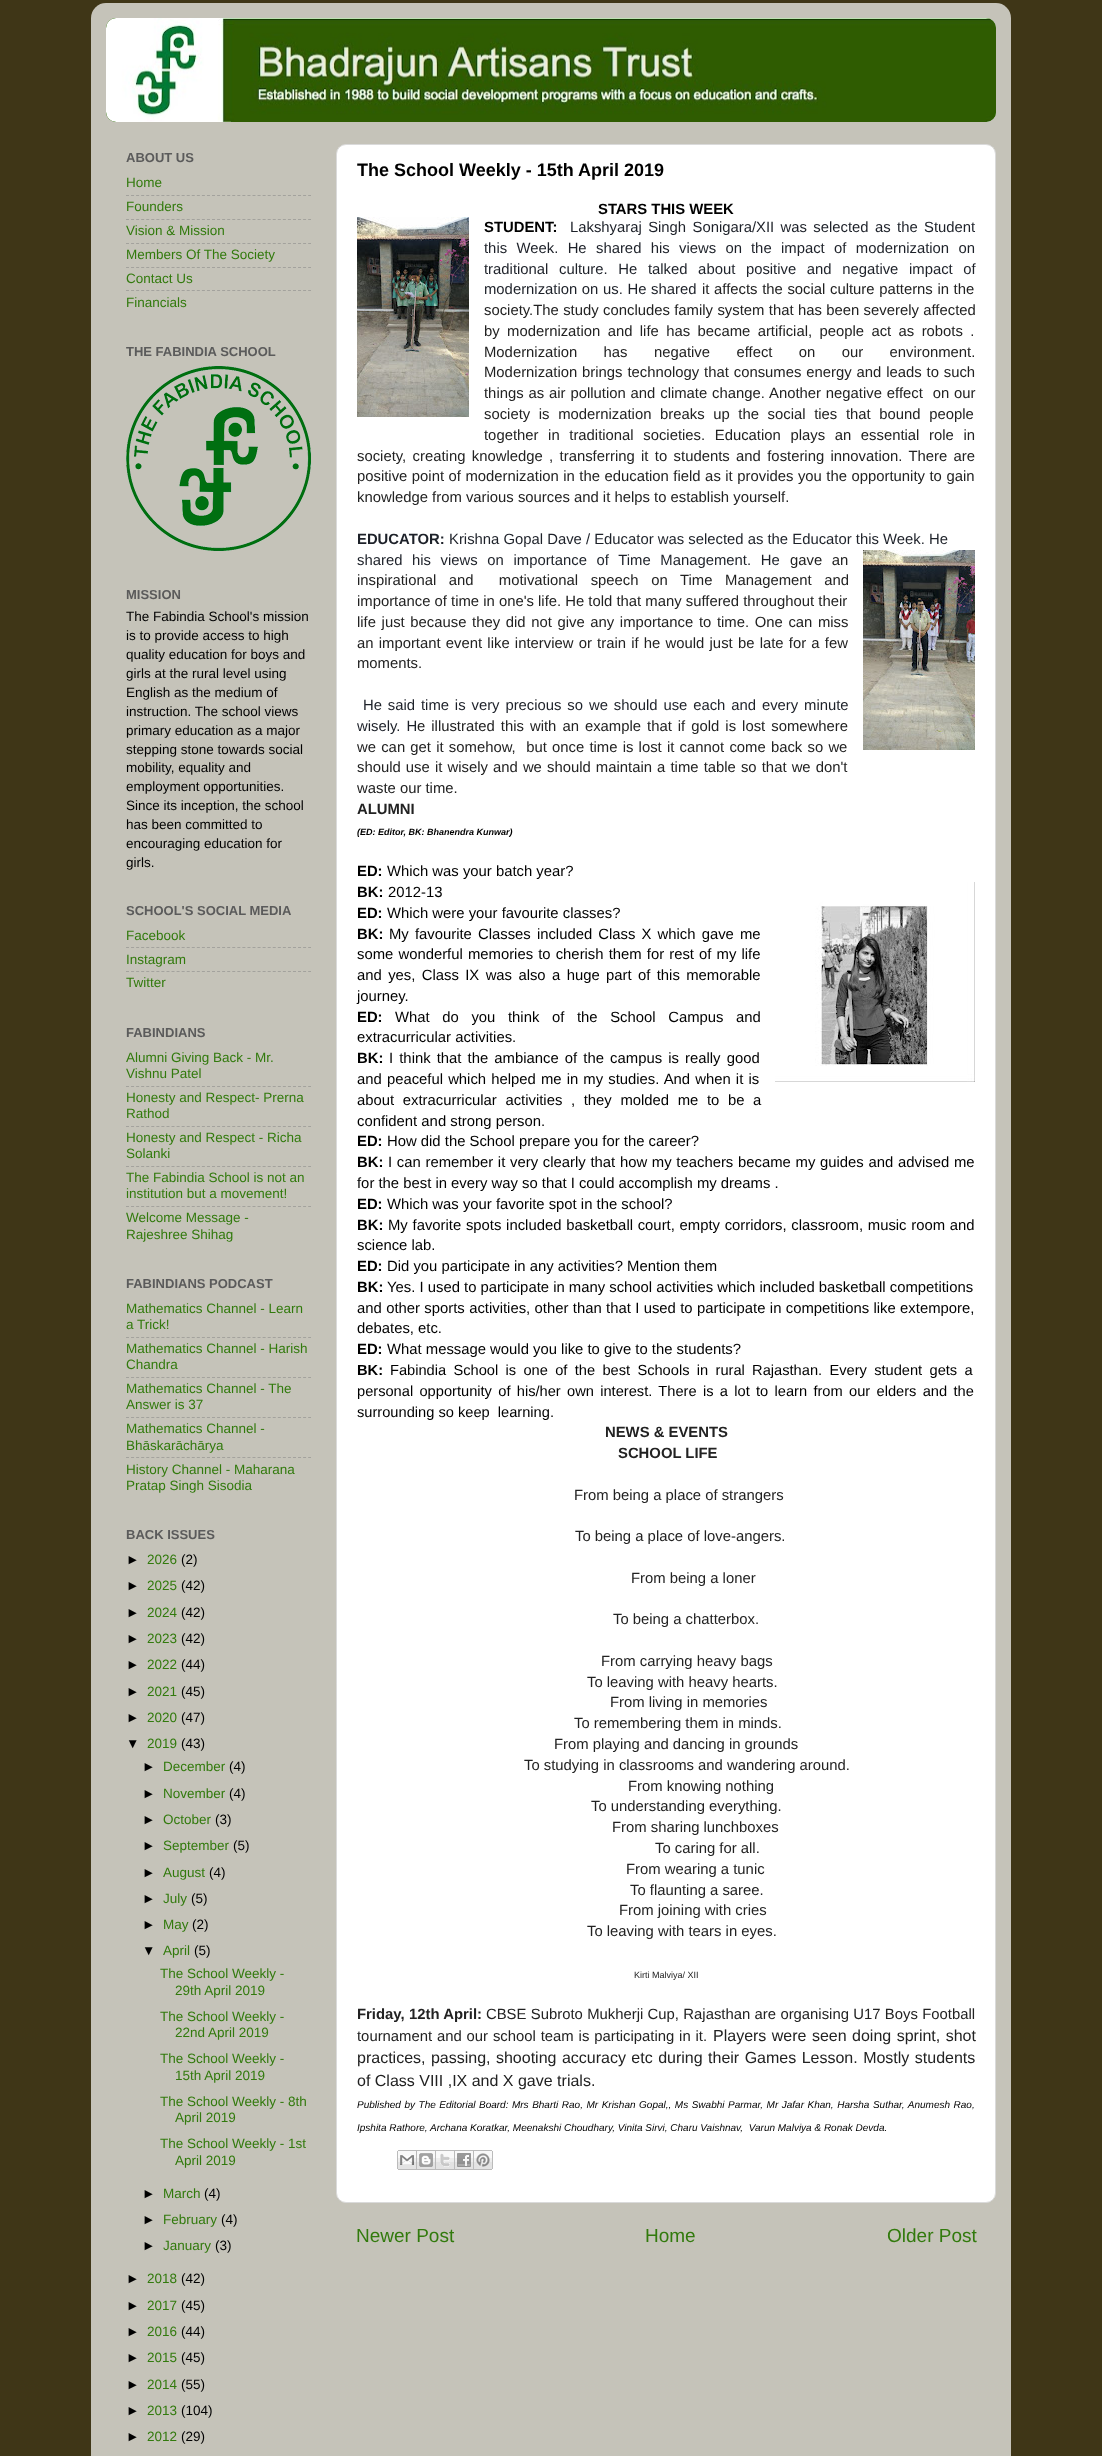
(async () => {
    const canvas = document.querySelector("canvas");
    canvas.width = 1102;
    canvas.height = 2456;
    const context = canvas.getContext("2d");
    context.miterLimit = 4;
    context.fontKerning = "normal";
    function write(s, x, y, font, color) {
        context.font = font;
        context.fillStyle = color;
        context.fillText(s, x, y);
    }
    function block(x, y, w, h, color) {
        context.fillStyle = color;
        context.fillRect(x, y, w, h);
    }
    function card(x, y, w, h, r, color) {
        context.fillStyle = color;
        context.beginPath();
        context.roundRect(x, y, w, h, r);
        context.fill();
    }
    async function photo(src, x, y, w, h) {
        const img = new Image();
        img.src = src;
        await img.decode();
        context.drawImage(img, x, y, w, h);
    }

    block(0, 0, 1102, 2456, "rgb(63, 54, 23)");
    await photo("media/1.png", 91, 3, 920, 2453);
    card(106, 18, 890, 104, 10, "rgb(50, 122, 13)");
    await photo("media/2.png", 106, 18, 890, 10);
    await photo("media/3.png", 106, 18, 890, 104);
    write("ABOUT US", 126, 162, "bold 13px Liberation Sans", "rgb(91, 91, 91)");
    write("Home", 126, 187, "13.5px Liberation Sans", "rgb(50, 122, 13)");
    context.beginPath();
    context.moveTo(126, 195.5);
    context.lineTo(311, 195.5);
    context.strokeStyle = "rgb(163, 162, 157)";
    context.setLineDash([3, 2.06]);
    context.stroke();
    write("Founders", 126, 211, "13.5px Liberation Sans", "rgb(50, 122, 13)");
    context.beginPath();
    context.moveTo(126, 219.5);
    context.lineTo(311, 219.5);
    context.stroke();
    write("Vision & Mission", 126, 235, "13.5px Liberation Sans", "rgb(50, 122, 13)");
    context.beginPath();
    context.moveTo(126, 243.5);
    context.lineTo(311, 243.5);
    context.stroke();
    write("Members Of The Society", 126, 259, "13.5px Liberation Sans", "rgb(50, 122, 13)");
    context.beginPath();
    context.moveTo(126, 267.5);
    context.lineTo(311, 267.5);
    context.stroke();
    write("Contact Us", 126, 283, "13.5px Liberation Sans", "rgb(50, 122, 13)");
    context.beginPath();
    context.moveTo(126, 290.5);
    context.lineTo(311, 290.5);
    context.stroke();
    write("Financials", 126, 307, "13.5px Liberation Sans", "rgb(50, 122, 13)");
    write("THE FABINDIA SCHOOL", 126, 356, "bold 13px Liberation Sans", "rgb(91, 91, 91)");
    await photo("media/4.png", 126, 366, 185, 185);
    write("MISSION", 126, 599, "bold 13px Liberation Sans", "rgb(91, 91, 91)");
    write("The Fabindia School's mission", 126, 621, "13.5px Liberation Sans", "rgb(0, 0, 0)");
    write("is to provide access to high", 126, 640, "13.5px Liberation Sans", "rgb(0, 0, 0)");
    write("quality education for boys and", 126, 659, "13.5px Liberation Sans", "rgb(0, 0, 0)");
    write("girls at the rural level using", 126, 678, "13.5px Liberation Sans", "rgb(0, 0, 0)");
    write("English as the medium of", 126, 697, "13.5px Liberation Sans", "rgb(0, 0, 0)");
    write("instruction. The school views", 126, 716, "13.5px Liberation Sans", "rgb(0, 0, 0)");
    write("primary education as a major", 126, 735, "13.5px Liberation Sans", "rgb(0, 0, 0)");
    write("stepping stone towards social", 126, 754, "13.5px Liberation Sans", "rgb(0, 0, 0)");
    write("mobility, equality and", 126, 772, "13.5px Liberation Sans", "rgb(0, 0, 0)");
    write("employment opportunities.", 126, 791, "13.5px Liberation Sans", "rgb(0, 0, 0)");
    write("Since its inception, the school", 126, 810, "13.5px Liberation Sans", "rgb(0, 0, 0)");
    write("has been committed to", 126, 829, "13.5px Liberation Sans", "rgb(0, 0, 0)");
    write("encouraging education for", 126, 848, "13.5px Liberation Sans", "rgb(0, 0, 0)");
    write("girls.", 126, 867, "13.5px Liberation Sans", "rgb(0, 0, 0)");
    write("SCHOOL'S SOCIAL MEDIA", 126, 915, "bold 13px Liberation Sans", "rgb(91, 91, 91)");
    write("Facebook", 126, 940, "13.5px Liberation Sans", "rgb(50, 122, 13)");
    context.beginPath();
    context.moveTo(126, 947.5);
    context.lineTo(311, 947.5);
    context.stroke();
    write("Instagram", 126, 964, "13.5px Liberation Sans", "rgb(50, 122, 13)");
    context.beginPath();
    context.moveTo(126, 971.5);
    context.lineTo(311, 971.5);
    context.stroke();
    write("Twitter", 126, 987, "13.5px Liberation Sans", "rgb(50, 122, 13)");
    write("FABINDIANS", 126, 1037, "bold 13px Liberation Sans", "rgb(91, 91, 91)");
    write("Alumni Giving Back - Mr.", 126, 1062, "13.5px Liberation Sans", "rgb(50, 122, 13)");
    write("Vishnu Patel", 126, 1078, "13.5px Liberation Sans", "rgb(50, 122, 13)");
    context.beginPath();
    context.moveTo(126, 1086.5);
    context.lineTo(311, 1086.5);
    context.stroke();
    write("Honesty and Respect- Prerna", 126, 1102, "13.5px Liberation Sans", "rgb(50, 122, 13)");
    write("Rathod", 126, 1118, "13.5px Liberation Sans", "rgb(50, 122, 13)");
    context.beginPath();
    context.moveTo(126, 1126.5);
    context.lineTo(311, 1126.5);
    context.stroke();
    write("Honesty and Respect - Richa", 126, 1142, "13.5px Liberation Sans", "rgb(50, 122, 13)");
    write("Solanki", 126, 1158, "13.5px Liberation Sans", "rgb(50, 122, 13)");
    context.beginPath();
    context.moveTo(126, 1166.5);
    context.lineTo(311, 1166.5);
    context.stroke();
    write("The Fabindia School is not an", 126, 1182, "13.5px Liberation Sans", "rgb(50, 122, 13)");
    write("institution but a movement!", 126, 1198, "13.5px Liberation Sans", "rgb(50, 122, 13)");
    context.beginPath();
    context.moveTo(126, 1206.5);
    context.lineTo(311, 1206.5);
    context.stroke();
    write("Welcome Message -", 126, 1222, "13.5px Liberation Sans", "rgb(50, 122, 13)");
    write("Rajeshree Shihag", 126, 1239, "13.5px Liberation Sans", "rgb(50, 122, 13)");
    write("FABINDIANS PODCAST", 126, 1288, "bold 13px Liberation Sans", "rgb(91, 91, 91)");
    write("Mathematics Channel - Learn", 126, 1313, "13.5px Liberation Sans", "rgb(50, 122, 13)");
    write("a Trick!", 126, 1329, "13.5px Liberation Sans", "rgb(50, 122, 13)");
    context.beginPath();
    context.moveTo(126, 1337.5);
    context.lineTo(311, 1337.5);
    context.stroke();
    write("Mathematics Channel - Harish", 126, 1353, "13.5px Liberation Sans", "rgb(50, 122, 13)");
    write("Chandra", 126, 1369, "13.5px Liberation Sans", "rgb(50, 122, 13)");
    context.beginPath();
    context.moveTo(126, 1377.5);
    context.lineTo(311, 1377.5);
    context.stroke();
    write("Mathematics Channel - The", 126, 1393, "13.5px Liberation Sans", "rgb(50, 122, 13)");
    write("Answer is 37", 126, 1409, "13.5px Liberation Sans", "rgb(50, 122, 13)");
    context.beginPath();
    context.moveTo(126, 1417.5);
    context.lineTo(311, 1417.5);
    context.stroke();
    write("Mathematics Channel -", 126, 1433, "13.5px Liberation Sans", "rgb(50, 122, 13)");
    write("Bhāskarāchārya", 126, 1450, "13.5px Liberation Sans", "rgb(50, 122, 13)");
    context.beginPath();
    context.moveTo(126, 1457.5);
    context.lineTo(311, 1457.5);
    context.stroke();
    write("History Channel - Maharana", 126, 1474, "13.5px Liberation Sans", "rgb(50, 122, 13)");
    write("Pratap Singh Sisodia", 126, 1490, "13.5px Liberation Sans", "rgb(50, 122, 13)");
    write("BACK ISSUES", 126, 1539, "bold 13px Liberation Sans", "rgb(91, 91, 91)");
    write("►", 126, 1564, "13.5px Liberation Sans", "rgb(0, 0, 0)");
    write("2026", 147, 1564, "13.5px Liberation Sans", "rgb(50, 122, 13)");
    write("(2)", 181, 1564, "13.5px Liberation Sans", "rgb(0, 0, 0)");
    write("►", 126, 1590, "13.5px Liberation Sans", "rgb(0, 0, 0)");
    write("2025", 147, 1590, "13.5px Liberation Sans", "rgb(50, 122, 13)");
    write("(42)", 181, 1590, "13.5px Liberation Sans", "rgb(0, 0, 0)");
    write("►", 126, 1617, "13.5px Liberation Sans", "rgb(0, 0, 0)");
    write("2024", 147, 1617, "13.5px Liberation Sans", "rgb(50, 122, 13)");
    write("(42)", 181, 1617, "13.5px Liberation Sans", "rgb(0, 0, 0)");
    write("►", 126, 1643, "13.5px Liberation Sans", "rgb(0, 0, 0)");
    write("2023", 147, 1643, "13.5px Liberation Sans", "rgb(50, 122, 13)");
    write("(42)", 181, 1643, "13.5px Liberation Sans", "rgb(0, 0, 0)");
    write("►", 126, 1669, "13.5px Liberation Sans", "rgb(0, 0, 0)");
    write("2022", 147, 1669, "13.5px Liberation Sans", "rgb(50, 122, 13)");
    write("(44)", 181, 1669, "13.5px Liberation Sans", "rgb(0, 0, 0)");
    write("►", 126, 1696, "13.5px Liberation Sans", "rgb(0, 0, 0)");
    write("2021", 147, 1696, "13.5px Liberation Sans", "rgb(50, 122, 13)");
    write("(45)", 181, 1696, "13.5px Liberation Sans", "rgb(0, 0, 0)");
    write("►", 126, 1722, "13.5px Liberation Sans", "rgb(0, 0, 0)");
    write("2020", 147, 1722, "13.5px Liberation Sans", "rgb(50, 122, 13)");
    write("(47)", 181, 1722, "13.5px Liberation Sans", "rgb(0, 0, 0)");
    write("▼", 126, 1748, "13.5px Liberation Sans", "rgb(0, 0, 0)");
    write("2019", 147, 1748, "13.5px Liberation Sans", "rgb(50, 122, 13)");
    write("(43)", 181, 1748, "13.5px Liberation Sans", "rgb(0, 0, 0)");
    write("►", 142, 1771, "13.5px Liberation Sans", "rgb(0, 0, 0)");
    write("December", 163, 1771, "13.5px Liberation Sans", "rgb(50, 122, 13)");
    write("(4)", 229, 1771, "13.5px Liberation Sans", "rgb(0, 0, 0)");
    write("►", 142, 1798, "13.5px Liberation Sans", "rgb(0, 0, 0)");
    write("November", 163, 1798, "13.5px Liberation Sans", "rgb(50, 122, 13)");
    write("(4)", 229, 1798, "13.5px Liberation Sans", "rgb(0, 0, 0)");
    write("►", 142, 1824, "13.5px Liberation Sans", "rgb(0, 0, 0)");
    write("October", 163, 1824, "13.5px Liberation Sans", "rgb(50, 122, 13)");
    write("(3)", 215, 1824, "13.5px Liberation Sans", "rgb(0, 0, 0)");
    write("►", 142, 1850, "13.5px Liberation Sans", "rgb(0, 0, 0)");
    write("September", 163, 1850, "13.5px Liberation Sans", "rgb(50, 122, 13)");
    write("(5)", 233, 1850, "13.5px Liberation Sans", "rgb(0, 0, 0)");
    write("►", 142, 1877, "13.5px Liberation Sans", "rgb(0, 0, 0)");
    write("August", 163, 1877, "13.5px Liberation Sans", "rgb(50, 122, 13)");
    write("(4)", 209, 1877, "13.5px Liberation Sans", "rgb(0, 0, 0)");
    write("►", 142, 1903, "13.5px Liberation Sans", "rgb(0, 0, 0)");
    write("July", 163, 1903, "13.5px Liberation Sans", "rgb(50, 122, 13)");
    write("(5)", 191, 1903, "13.5px Liberation Sans", "rgb(0, 0, 0)");
    write("►", 142, 1929, "13.5px Liberation Sans", "rgb(0, 0, 0)");
    write("May", 163, 1929, "13.5px Liberation Sans", "rgb(50, 122, 13)");
    write("(2)", 192, 1929, "13.5px Liberation Sans", "rgb(0, 0, 0)");
    write("▼", 142, 1955, "13.5px Liberation Sans", "rgb(0, 0, 0)");
    write("April", 163, 1955, "13.5px Liberation Sans", "rgb(50, 122, 13)");
    write("(5)", 194, 1955, "13.5px Liberation Sans", "rgb(0, 0, 0)");
    write("The School Weekly -", 160, 1978, "13.5px Liberation Sans", "rgb(50, 122, 13)");
    write("29th April 2019", 175, 1995, "13.5px Liberation Sans", "rgb(50, 122, 13)");
    write("The School Weekly -", 160, 2021, "13.5px Liberation Sans", "rgb(50, 122, 13)");
    write("22nd April 2019", 175, 2037, "13.5px Liberation Sans", "rgb(50, 122, 13)");
    write("The School Weekly -", 160, 2063, "13.5px Liberation Sans", "rgb(50, 122, 13)");
    write("15th April 2019", 175, 2080, "13.5px Liberation Sans", "rgb(50, 122, 13)");
    write("The School Weekly - 8th", 160, 2106, "13.5px Liberation Sans", "rgb(50, 122, 13)");
    write("April 2019", 175, 2122, "13.5px Liberation Sans", "rgb(50, 122, 13)");
    write("The School Weekly - 1st", 160, 2148, "13.5px Liberation Sans", "rgb(50, 122, 13)");
    write("April 2019", 175, 2165, "13.5px Liberation Sans", "rgb(50, 122, 13)");
    write("►", 142, 2198, "13.5px Liberation Sans", "rgb(0, 0, 0)");
    write("March", 163, 2198, "13.5px Liberation Sans", "rgb(50, 122, 13)");
    write("(4)", 204, 2198, "13.5px Liberation Sans", "rgb(0, 0, 0)");
    write("►", 142, 2224, "13.5px Liberation Sans", "rgb(0, 0, 0)");
    write("February", 163, 2224, "13.5px Liberation Sans", "rgb(50, 122, 13)");
    write("(4)", 221, 2224, "13.5px Liberation Sans", "rgb(0, 0, 0)");
    write("►", 142, 2250, "13.5px Liberation Sans", "rgb(0, 0, 0)");
    write("January", 163, 2250, "13.5px Liberation Sans", "rgb(50, 122, 13)");
    write("(3)", 215, 2250, "13.5px Liberation Sans", "rgb(0, 0, 0)");
    write("►", 126, 2283, "13.5px Liberation Sans", "rgb(0, 0, 0)");
    write("2018", 147, 2283, "13.5px Liberation Sans", "rgb(50, 122, 13)");
    write("(42)", 181, 2283, "13.5px Liberation Sans", "rgb(0, 0, 0)");
    write("►", 126, 2310, "13.5px Liberation Sans", "rgb(0, 0, 0)");
    write("2017", 147, 2310, "13.5px Liberation Sans", "rgb(50, 122, 13)");
    write("(45)", 181, 2310, "13.5px Liberation Sans", "rgb(0, 0, 0)");
    write("►", 126, 2336, "13.5px Liberation Sans", "rgb(0, 0, 0)");
    write("2016", 147, 2336, "13.5px Liberation Sans", "rgb(50, 122, 13)");
    write("(44)", 181, 2336, "13.5px Liberation Sans", "rgb(0, 0, 0)");
    write("►", 126, 2362, "13.5px Liberation Sans", "rgb(0, 0, 0)");
    write("2015", 147, 2362, "13.5px Liberation Sans", "rgb(50, 122, 13)");
    write("(45)", 181, 2362, "13.5px Liberation Sans", "rgb(0, 0, 0)");
    write("►", 126, 2389, "13.5px Liberation Sans", "rgb(0, 0, 0)");
    write("2014", 147, 2389, "13.5px Liberation Sans", "rgb(50, 122, 13)");
    write("(55)", 181, 2389, "13.5px Liberation Sans", "rgb(0, 0, 0)");
    write("►", 126, 2415, "13.5px Liberation Sans", "rgb(0, 0, 0)");
    write("2013", 147, 2415, "13.5px Liberation Sans", "rgb(50, 122, 13)");
    write("(104)", 181, 2415, "13.5px Liberation Sans", "rgb(0, 0, 0)");
    write("►", 126, 2441, "13.5px Liberation Sans", "rgb(0, 0, 0)");
    write("2012", 147, 2441, "13.5px Liberation Sans", "rgb(50, 122, 13)");
    write("(29)", 181, 2441, "13.5px Liberation Sans", "rgb(0, 0, 0)");
    context.fillStyle = "rgb(255, 255, 255)";
    context.beginPath();
    context.roundRect(336.5, 144.5, 659, 2058, 9.5);
    context.fill();
    context.strokeStyle = "rgb(218, 218, 218)";
    context.setLineDash([]);
    context.stroke();
    write("The School Weekly - 15th April 2019", 357, 176, "bold 18px Liberation Sans", "rgb(0, 0, 0)");
    write("STARS THIS WEEK", 598, 214, "bold 14.85px Liberation Sans", "rgb(0, 0, 0)");
    await photo("media/5.png", 357, 217, 112, 200);
    write("STUDENT:", 484, 232, "bold 14.85px Liberation Sans", "rgb(0, 0, 0)");
    context.wordSpacing = "2.25px";
    write("Lakshyaraj Singh Sonigara/XII was selected as the Student", 570, 232, "14.85px Liberation Sans", "rgb(29, 33, 41)");
    context.wordSpacing = "5.25px";
    write("this Week. He shared his views on", 484, 253, "14.85px Liberation Sans", "rgb(29, 33, 41)");
    write("the impact of modernization on", 751, 253, "14.85px Liberation Sans", "rgb(29, 33, 41)");
    context.wordSpacing = "6.5px";
    write("traditional culture. He talked about positive and negative impact of", 484, 274, "14.85px Liberation Sans", "rgb(29, 33, 41)");
    context.wordSpacing = "0.5px";
    write("modernization on us. He shared", 484, 294, "14.85px Liberation Sans", "rgb(29, 33, 41)");
    write("it affects the social culture patterns in the", 702, 294, "14.85px Liberation Sans", "rgb(34, 34, 34)");
    context.wordSpacing = "0.25px";
    write("society.The study concludes family system that has been severely affected", 484, 315, "14.85px Liberation Sans", "rgb(34, 34, 34)");
    context.wordSpacing = "3.25px";
    write("by modernization and life has became artificial, people act as robots .", 484, 336, "14.85px Liberation Sans", "rgb(34, 34, 34)");
    context.wordSpacing = "22.25px";
    write("Modernization has negative effect on our environment.", 484, 357, "14.85px Liberation Sans", "rgb(34, 34, 34)");
    context.wordSpacing = "0.75px";
    write("Modernization brings technology that consumes energy and leads to such", 484, 377, "14.85px Liberation Sans", "rgb(34, 34, 34)");
    write("things as air pollution and climate change. Another negative effect  on our", 484, 398, "14.85px Liberation Sans", "rgb(34, 34, 34)");
    context.wordSpacing = "4.5px";
    write("society is modernization breaks up the social ties that bound people", 484, 419, "14.85px Liberation Sans", "rgb(34, 34, 34)");
    context.wordSpacing = "5.5px";
    write("together in traditional societies. Education plays an essential role in", 484, 440, "14.85px Liberation Sans", "rgb(34, 34, 34)");
    context.wordSpacing = "2.25px";
    write("society, creating knowledge , transferring it to students and fostering innovation. There are", 357, 461, "14.85px Liberation Sans", "rgb(34, 34, 34)");
    context.wordSpacing = "0.4px";
    write("positive point of modernization in the education field as it provides you the opportunity to gain", 357, 481, "14.85px Liberation Sans", "rgb(34, 34, 34)");
    context.wordSpacing = "0px";
    write("knowledge from various sources and it helps to establish yourself.", 357, 502, "14.85px Liberation Sans", "rgb(34, 34, 34)");
    write("EDUCATOR:", 357, 544, "bold 14.85px Liberation Sans", "rgb(29, 33, 41)");
    write("Krishna Gopal Dave / Educator was selected as the Educator this Week. He", 449, 544, "14.85px Liberation Sans", "rgb(29, 33, 41)");
    context.wordSpacing = "5.5px";
    write("shared his views on importance of Time Management. He", 357, 565, "14.85px Liberation Sans", "rgb(29, 33, 41)");
    write("gave an", 790, 565, "14.85px Liberation Sans", "rgb(34, 34, 34)");
    await photo("media/6.png", 863, 550, 112, 200);
    context.wordSpacing = "8.5px";
    write("inspirational and  motivational speech on Time Management and", 357, 585, "14.85px Liberation Sans", "rgb(34, 34, 34)");
    context.wordSpacing = "0px";
    write("importance of time in one's life. He told that many suffered throughout their", 357, 606, "14.85px Liberation Sans", "rgb(34, 34, 34)");
    context.wordSpacing = "1.5px";
    write("life just because they did not give any importance to time. One can miss", 357, 627, "14.85px Liberation Sans", "rgb(34, 34, 34)");
    context.wordSpacing = "1.1px";
    write("an important event like interview or train if he would just be late for a few", 357, 648, "14.85px Liberation Sans", "rgb(34, 34, 34)");
    context.wordSpacing = "0px";
    write("moments.", 357, 668, "14.85px Liberation Sans", "rgb(34, 34, 34)");
    context.wordSpacing = "1.75px";
    write("He said time is very precious so we should use each and every minute", 363, 710, "14.85px Liberation Sans", "rgb(29, 33, 41)");
    context.wordSpacing = "2px";
    write("wisely. H", 357, 731, "14.85px Liberation Sans", "rgb(29, 33, 41)");
    context.wordSpacing = "1.9px";
    write("e illustrated this with an example that if gold is lost somewhere", 417, 731, "14.85px Liberation Sans", "rgb(34, 34, 34)");
    context.wordSpacing = "1.1px";
    write("we can get it somehow,  but once time is lost it cannot come back so we", 357, 752, "14.85px Liberation Sans", "rgb(34, 34, 34)");
    context.wordSpacing = "1px";
    write("should use it wisely and we should maintain a time table so that we don't", 357, 772, "14.85px Liberation Sans", "rgb(34, 34, 34)");
    context.wordSpacing = "0px";
    write("waste our time.", 357, 793, "14.85px Liberation Sans", "rgb(34, 34, 34)");
    write("ALUMNI", 357, 814, "bold 14.85px Liberation Sans", "rgb(34, 34, 34)");
    write("(ED: Editor, BK: Bhanendra Kunwar)", 357, 835, "italic bold 9px Liberation Sans", "rgb(0, 0, 0)");
    write("ED:", 357, 876, "bold 14.85px Liberation Sans", "rgb(0, 0, 0)");
    write("Which was your batch year?", 387, 876, "14.85px Liberation Sans", "rgb(0, 0, 0)");
    await photo("media/7.png", 775, 882, 200, 200);
    write("BK:", 357, 897, "bold 14.85px Liberation Sans", "rgb(0, 0, 0)");
    write("2012-13", 388, 897, "14.85px Liberation Sans", "rgb(0, 0, 0)");
    write("ED:", 357, 918, "bold 14.85px Liberation Sans", "rgb(0, 0, 0)");
    write("Which were your favourite classes?", 387, 918, "14.85px Liberation Sans", "rgb(0, 0, 0)");
    write("BK:", 357, 939, "bold 14.85px Liberation Sans", "rgb(0, 0, 0)");
    context.wordSpacing = "2px";
    write("My favourite Classes included Class X which gave me", 389, 939, "14.85px Liberation Sans", "rgb(0, 0, 0)");
    context.wordSpacing = "1px";
    write("some wonderful memories to cherish them for rest of my life", 357, 959, "14.85px Liberation Sans", "rgb(0, 0, 0)");
    context.wordSpacing = "2.25px";
    write("and yes, Class IX was also a huge part of this memorable", 357, 980, "14.85px Liberation Sans", "rgb(0, 0, 0)");
    context.wordSpacing = "0px";
    write("journey.", 357, 1001, "14.85px Liberation Sans", "rgb(0, 0, 0)");
    write("ED:", 357, 1022, "bold 14.85px Liberation Sans", "rgb(0, 0, 0)");
    context.wordSpacing = "8.5px";
    write("What do you think of the School Campus and", 395, 1022, "14.85px Liberation Sans", "rgb(0, 0, 0)");
    context.wordSpacing = "0px";
    write("extracurricular activities.", 357, 1042, "14.85px Liberation Sans", "rgb(0, 0, 0)");
    write("BK:", 357, 1063, "bold 14.85px Liberation Sans", "rgb(0, 0, 0)");
    context.wordSpacing = "2px";
    write("I think that the ambiance of the campus is really good", 389, 1063, "14.85px Liberation Sans", "rgb(0, 0, 0)");
    context.wordSpacing = "1px";
    write("and peaceful which helped me in my studies. And when it is", 357, 1084, "14.85px Liberation Sans", "rgb(0, 0, 0)");
    context.wordSpacing = "4.5px";
    write("about extracurricular activities , they molded me to be a", 357, 1105, "14.85px Liberation Sans", "rgb(0, 0, 0)");
    context.wordSpacing = "0px";
    write("confident and strong person.", 357, 1126, "14.85px Liberation Sans", "rgb(0, 0, 0)");
    write("ED:", 357, 1146, "bold 14.85px Liberation Sans", "rgb(0, 0, 0)");
    write("How did the School prepare you for the career?", 387, 1146, "14.85px Liberation Sans", "rgb(0, 0, 0)");
    write("BK:", 357, 1167, "bold 14.85px Liberation Sans", "rgb(0, 0, 0)");
    context.wordSpacing = "0.6px";
    write("I can remember it very clearly that how my teachers became my guides and advised me", 388, 1167, "14.85px Liberation Sans", "rgb(0, 0, 0)");
    context.wordSpacing = "0px";
    write("for the best in every way so that I could accomplish my dreams .", 357, 1188, "14.85px Liberation Sans", "rgb(0, 0, 0)");
    write("ED:", 357, 1209, "bold 14.85px Liberation Sans", "rgb(0, 0, 0)");
    write("Which was your favorite spot in the school?", 387, 1209, "14.85px Liberation Sans", "rgb(0, 0, 0)");
    write("BK:", 357, 1230, "bold 14.85px Liberation Sans", "rgb(0, 0, 0)");
    context.wordSpacing = "0.6px";
    write("My favorite spots included basketball court, empty corridors, classroom, music room and", 388, 1230, "14.85px Liberation Sans", "rgb(0, 0, 0)");
    context.wordSpacing = "0px";
    write("science lab.", 357, 1250, "14.85px Liberation Sans", "rgb(0, 0, 0)");
    write("ED:", 357, 1271, "bold 14.85px Liberation Sans", "rgb(0, 0, 0)");
    write("Did you participate in any activities? Mention them", 387, 1271, "14.85px Liberation Sans", "rgb(0, 0, 0)");
    write("BK:", 357, 1292, "bold 14.85px Liberation Sans", "rgb(0, 0, 0)");
    write("Yes. I used to participate in many school activities which included basketball competitions", 387, 1292, "14.85px Liberation Sans", "rgb(0, 0, 0)");
    context.wordSpacing = "0.25px";
    write("and other sports activities, other than that I used to participate in competitions like extempore,", 357, 1313, "14.85px Liberation Sans", "rgb(0, 0, 0)");
    context.wordSpacing = "0px";
    write("debates, etc.", 357, 1333, "14.85px Liberation Sans", "rgb(0, 0, 0)");
    write("ED:", 357, 1354, "bold 14.85px Liberation Sans", "rgb(0, 0, 0)");
    write("What message would you like to give to the students?", 387, 1354, "14.85px Liberation Sans", "rgb(0, 0, 0)");
    write("BK:", 357, 1375, "bold 14.65px Liberation Sans", "rgb(0, 0, 0)");
    context.wordSpacing = "3.25px";
    write("Fabindia School is one of the best Schools in rural Rajasthan. Every student gets a", 390, 1375, "14.65px Liberation Sans", "rgb(0, 0, 0)");
    context.wordSpacing = "2.25px";
    write("personal opportunity of his/her own interest. There is a lot to learn from our elders and the", 357, 1396, "14.65px Liberation Sans", "rgb(0, 0, 0)");
    context.wordSpacing = "0px";
    write("surrounding so keep  learning.", 357, 1417, "14.65px Liberation Sans", "rgb(0, 0, 0)");
    write("NEWS & EVENTS", 605, 1437, "bold 14.85px Liberation Sans", "rgb(34, 34, 34)");
    write("SCHOOL LIFE", 618, 1458, "bold 14.85px Liberation Sans", "rgb(34, 34, 34)");
    write("From being a place of strangers", 574, 1500, "14.85px Liberation Sans", "rgb(34, 34, 34)");
    write("To being a place of love-angers.", 575, 1541, "14.85px Liberation Sans", "rgb(34, 34, 34)");
    write("From being a loner", 631, 1583, "14.85px Liberation Sans", "rgb(34, 34, 34)");
    write("To being a chatterbox.", 613, 1624, "14.85px Liberation Sans", "rgb(34, 34, 34)");
    write("From carrying heavy bags", 601, 1666, "14.85px Liberation Sans", "rgb(34, 34, 34)");
    write("To leaving with heavy hearts.", 587, 1687, "14.85px Liberation Sans", "rgb(34, 34, 34)");
    write("From living in memories", 610, 1707, "14.85px Liberation Sans", "rgb(34, 34, 34)");
    write("To remembering them in minds.", 574, 1728, "14.85px Liberation Sans", "rgb(34, 34, 34)");
    write("From playing and dancing in grounds", 554, 1749, "14.85px Liberation Sans", "rgb(34, 34, 34)");
    write("To studying in classrooms and wandering around.", 524, 1770, "14.85px Liberation Sans", "rgb(34, 34, 34)");
    write("From knowing nothing", 628, 1791, "14.85px Liberation Sans", "rgb(34, 34, 34)");
    write("To understanding everything.", 591, 1811, "14.85px Liberation Sans", "rgb(34, 34, 34)");
    write("From sharing lunchboxes", 612, 1832, "14.85px Liberation Sans", "rgb(34, 34, 34)");
    write("To caring for all.", 655, 1853, "14.85px Liberation Sans", "rgb(34, 34, 34)");
    write("From wearing a tunic", 626, 1874, "14.85px Liberation Sans", "rgb(34, 34, 34)");
    write("To flaunting a saree.", 630, 1895, "14.85px Liberation Sans", "rgb(34, 34, 34)");
    write("From joining with cries", 619, 1915, "14.85px Liberation Sans", "rgb(34, 34, 34)");
    write("To leaving with tears in eyes.", 587, 1936, "14.85px Liberation Sans", "rgb(34, 34, 34)");
    write("Kirti Malviya/ XII", 634, 1978, "9px Liberation Sans", "rgb(34, 34, 34)");
    context.wordSpacing = "0.25px";
    write("Friday, 12th April:", 357, 2019, "bold 14.85px Liberation Sans", "rgb(34, 34, 34)");
    write("CBSE Subroto Mukherji Cup, Rajasthan are organising U17 Boys Football", 486, 2019, "14.85px Liberation Sans", "rgb(34, 34, 34)");
    context.wordSpacing = "0.75px";
    write("tournament and our school team is participating in it.", 357, 2041, "14.85px Liberation Sans", "rgb(34, 34, 34)");
    context.wordSpacing = "1px";
    write("Players were seen doing sprint, shot", 713, 2041, "16px Liberation Sans", "rgb(34, 34, 34)");
    write("practices, passing, shooting accuracy etc during their Games Lesson. Mostly students", 357, 2063, "16px Liberation Sans", "rgb(34, 34, 34)");
    context.wordSpacing = "0px";
    write("of Class VIII ,IX and X gave trials.", 357, 2086, "16px Liberation Sans", "rgb(34, 34, 34)");
    context.wordSpacing = "0.75px";
    write("Published by The Editorial Board: Mrs Bharti Rao, Mr Krishan Gopal,, Ms Swabhi Parmar, Mr Jafar Khan, Harsha Suthar, Anumesh Rao,", 357, 2108, "italic 10px Liberation Sans", "rgb(0, 0, 0)");
    context.wordSpacing = "0px";
    write("Ipshita Rathore, Archana Koratkar, Meenakshi Choudhary, Vinita Sirvi, Charu Vaishnav,  Varun Malviya & Ronak Devda.", 357, 2131, "italic 10px Liberation Sans", "rgb(0, 0, 0)");
    await photo("media/8.png", 397, 2150, 20, 20);
    await photo("media/9.png", 417, 2150, 19, 20);
    await photo("media/10.png", 436, 2150, 19, 20);
    await photo("media/11.png", 455, 2150, 19, 20);
    await photo("media/12.png", 474, 2150, 19, 20);
    write("Newer Post", 356, 2242, "19px Liberation Sans", "rgb(50, 122, 13)");
    write("Home", 645, 2242, "19px Liberation Sans", "rgb(50, 122, 13)");
    write("Older Post", 887, 2242, "19px Liberation Sans", "rgb(50, 122, 13)");
})();
